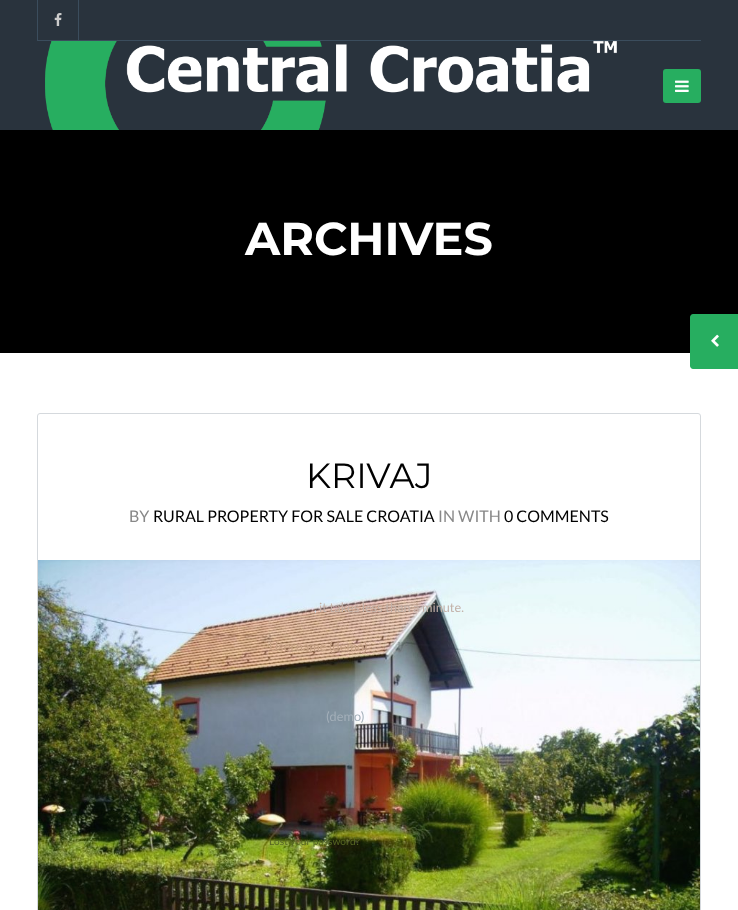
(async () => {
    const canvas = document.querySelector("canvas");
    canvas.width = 738;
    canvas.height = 910;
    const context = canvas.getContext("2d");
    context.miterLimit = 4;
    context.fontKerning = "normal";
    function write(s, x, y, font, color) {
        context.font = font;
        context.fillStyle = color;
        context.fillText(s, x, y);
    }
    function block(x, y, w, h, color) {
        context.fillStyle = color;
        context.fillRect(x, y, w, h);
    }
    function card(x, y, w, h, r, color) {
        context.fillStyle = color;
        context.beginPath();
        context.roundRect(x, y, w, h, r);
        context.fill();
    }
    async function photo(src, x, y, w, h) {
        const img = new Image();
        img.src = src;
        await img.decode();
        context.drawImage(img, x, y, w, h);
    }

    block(0, 0, 738, 910, "rgb(255, 255, 255)");
    block(0, 0, 738, 130, "rgb(41, 51, 61)");
    await photo("media/1.png", 45, 41, 572, 89);
    card(663, 69, 38, 34, 3, "rgb(39, 174, 96)");
    await photo("media/2.png", 675, 80, 14, 12);
    block(37, 40, 664, 1, "rgb(59, 77, 93)");
    block(78, 0, 1, 40, "rgb(59, 77, 93)");
    block(37, 0, 1, 40, "rgb(59, 77, 93)");
    await photo("media/3.png", 54, 13, 8, 13);
    block(0, 130, 738, 223, "rgb(0, 0, 0)");
    write("ARCHIVES", 245, 255, "bold 46px Montserrat", "rgb(255, 255, 255)");
    context.beginPath();
    context.roundRect(37.5, 413.5, 663, 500, 2.5);
    context.strokeStyle = "rgb(213, 217, 221)";
    context.stroke();
    write("KRIVAJ", 306, 488, "35px Montserrat", "rgb(0, 0, 0)");
    write("BY", 129, 522, "16px Lato", "rgb(136, 136, 136)");
    write("RURAL PROPERTY FOR SALE CROATIA", 153, 522, "16px Lato", "rgb(0, 0, 0)");
    write("IN WITH", 438, 522, "16px Lato", "rgb(136, 136, 136)");
    write("0 COMMENTS", 504, 522, "16px Lato", "rgb(0, 0, 0)");
    await photo("media/4.png", 353, 793, 32, 32);
    await photo("media/5.png", 38, 560, 662, 350);
    context.fillStyle = "rgb(39, 174, 96)";
    context.beginPath();
    context.moveTo(693, 314);
    context.lineTo(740, 314);
    context.lineTo(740, 369);
    context.lineTo(693, 369);
    context.bezierCurveTo(691.5, 369, 690, 367.5, 690, 366);
    context.lineTo(690, 317);
    context.bezierCurveTo(690, 315.5, 691.5, 314, 693, 314);
    context.closePath();
    context.fill();
    await photo("media/6.png", 711, 334, 8, 13);
    write(",", 314, 612, "12.75px Lato", "rgb(213, 224, 234)");
    write("it takes less than a minute.", 319, 612, "12.75px Lato", "rgb(194, 177, 168)");
    write("Username", 269, 651, "12.75px Lato", "rgb(200, 163, 134)");
    write("(demo)", 329, 651, "12.75px Lato", "rgb(200, 163, 134)");
    write("(demo)", 326, 721, "12.75px Lato", "rgb(163, 175, 185)");
    write("Lost your password?", 269, 845, "10.25px Lato", "rgb(86, 101, 34)");
})();
